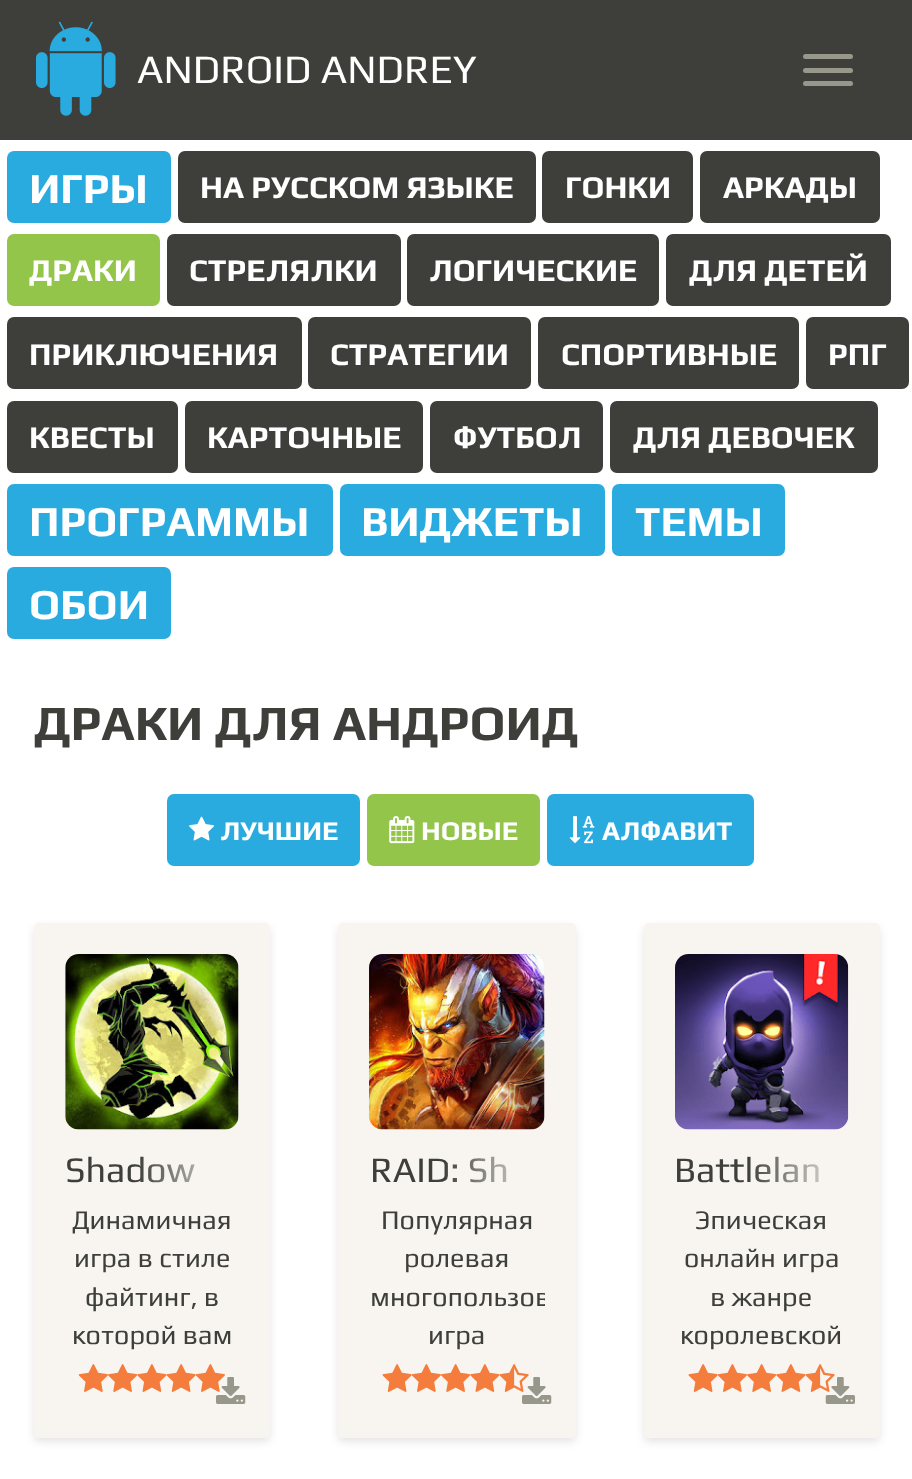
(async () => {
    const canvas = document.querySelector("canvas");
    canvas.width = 912;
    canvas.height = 1479;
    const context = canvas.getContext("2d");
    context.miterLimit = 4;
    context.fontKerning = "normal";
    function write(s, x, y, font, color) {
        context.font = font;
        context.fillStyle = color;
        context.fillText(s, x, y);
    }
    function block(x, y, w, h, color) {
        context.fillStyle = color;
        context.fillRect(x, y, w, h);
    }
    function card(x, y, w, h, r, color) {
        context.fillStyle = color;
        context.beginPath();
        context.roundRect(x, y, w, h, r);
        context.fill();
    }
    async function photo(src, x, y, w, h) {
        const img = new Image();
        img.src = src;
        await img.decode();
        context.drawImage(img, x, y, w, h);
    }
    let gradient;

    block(0, 0, 912, 1479, "rgb(255, 255, 255)");
    block(0, 0, 912, 140, "rgb(62, 63, 58)");
    await photo("media/1.png", 36, 21, 80, 95);
    write("ANDROID ANDREY", 137, 83, "40.5px Play", "rgb(255, 255, 255)");
    card(803, 54, 50, 5, 2.5, "rgb(152, 151, 139)");
    card(803, 68, 50, 5, 2.5, "rgb(152, 151, 139)");
    card(803, 81, 50, 5, 2.5, "rgb(152, 151, 139)");
    card(7, 151, 164, 72, 7, "rgb(41, 171, 224)");
    write("ИГРЫ", 29, 203, "bold 42.75px Play", "rgb(255, 255, 255)");
    card(178, 151, 358, 72, 7, "rgb(62, 63, 58)");
    write("НА РУССКОМ ЯЗЫКЕ", 200, 198, "bold 31.5px Play", "rgb(255, 255, 255)");
    card(542, 151, 151, 72, 7, "rgb(62, 63, 58)");
    write("ГОНКИ", 565, 198, "bold 31.5px Play", "rgb(255, 255, 255)");
    card(700, 151, 180, 72, 7, "rgb(62, 63, 58)");
    write("АРКАДЫ", 723, 198, "bold 31.5px Play", "rgb(255, 255, 255)");
    card(7, 234, 153, 72, 7, "rgb(147, 197, 75)");
    write("ДРАКИ", 29, 281, "bold 31.5px Play", "rgb(255, 255, 255)");
    card(167, 234, 234, 72, 7, "rgb(62, 63, 58)");
    write("СТРЕЛЯЛКИ", 189, 281, "bold 31.5px Play", "rgb(255, 255, 255)");
    card(407, 234, 252, 72, 7, "rgb(62, 63, 58)");
    write("ЛОГИЧЕСКИЕ", 429, 281, "bold 31.5px Play", "rgb(255, 255, 255)");
    card(666, 234, 225, 72, 7, "rgb(62, 63, 58)");
    write("ДЛЯ ДЕТЕЙ", 689, 281, "bold 31.5px Play", "rgb(255, 255, 255)");
    card(7, 317, 295, 72, 7, "rgb(62, 63, 58)");
    write("ПРИКЛЮЧЕНИЯ", 29, 365, "bold 31.5px Play", "rgb(255, 255, 255)");
    card(308, 317, 223, 72, 7, "rgb(62, 63, 58)");
    write("СТРАТЕГИИ", 330, 365, "bold 31.5px Play", "rgb(255, 255, 255)");
    card(538, 317, 261, 72, 7, "rgb(62, 63, 58)");
    write("СПОРТИВНЫЕ", 561, 365, "bold 31.5px Play", "rgb(255, 255, 255)");
    card(806, 317, 103, 72, 7, "rgb(62, 63, 58)");
    write("РПГ", 828, 365, "bold 31.5px Play", "rgb(255, 255, 255)");
    card(7, 401, 171, 72, 7, "rgb(62, 63, 58)");
    write("КВЕСТЫ", 29, 448, "bold 31.5px Play", "rgb(255, 255, 255)");
    card(185, 401, 238, 72, 7, "rgb(62, 63, 58)");
    write("КАРТОЧНЫЕ", 207, 448, "bold 31.5px Play", "rgb(255, 255, 255)");
    card(430, 401, 173, 72, 7, "rgb(62, 63, 58)");
    write("ФУТБОЛ", 453, 448, "bold 31.5px Play", "rgb(255, 255, 255)");
    card(610, 401, 268, 72, 7, "rgb(62, 63, 58)");
    write("ДЛЯ ДЕВОЧЕК", 633, 448, "bold 31.5px Play", "rgb(255, 255, 255)");
    card(7, 484, 326, 72, 7, "rgb(41, 171, 224)");
    write("ПРОГРАММЫ", 29, 536, "bold 42.75px Play", "rgb(255, 255, 255)");
    card(340, 484, 265, 72, 7, "rgb(41, 171, 224)");
    write("ВИДЖЕТЫ", 361, 536, "bold 42.75px Play", "rgb(255, 255, 255)");
    card(612, 484, 173, 72, 7, "rgb(41, 171, 224)");
    write("ТЕМЫ", 635, 536, "bold 42.75px Play", "rgb(255, 255, 255)");
    card(7, 567, 164, 72, 7, "rgb(41, 171, 224)");
    write("ОБОИ", 29, 619, "bold 42.75px Play", "rgb(255, 255, 255)");
    write("ДРАКИ ДЛЯ АНДРОИД", 34, 740, "bold 49.5px Play", "rgb(62, 63, 58)");
    card(167, 794, 193, 72, 7, "rgb(41, 171, 224)");
    await photo("media/2.png", 189, 816, 25, 25);
    write("ЛУЧШИЕ", 220, 840, "bold 27px Play", "rgb(255, 255, 255)");
    card(367, 794, 173, 72, 7, "rgb(147, 197, 75)");
    await photo("media/3.png", 389, 816, 26, 28);
    write("НОВЫЕ", 421, 840, "bold 27px Play", "rgb(255, 255, 255)");
    card(547, 794, 207, 72, 7, "rgb(41, 171, 224)");
    await photo("media/4.png", 569, 816, 26, 28);
    write("АЛФАВИТ", 602, 840, "bold 27px Play", "rgb(255, 255, 255)");
    context.fillStyle = "rgba(0, 0, 0, 0.1)";
    context.filter = "blur(4.5px)";
    context.beginPath();
    context.roundRect(34, 927, 236, 515, 5);
    context.fill();
    context.filter = "none";
    card(34, 923, 236, 515, 5, "rgb(248, 245, 240)");
    await photo("media/5.png", 65, 954, 174, 176);
    write("Shadow", 65, 1182, "36px Play", "rgb(62, 63, 58)");
    gradient = context.createLinearGradient(137, 1171, 239, 1171);
    gradient.addColorStop(0, "rgba(248, 245, 240, 0)");
    gradient.addColorStop(1, "rgb(248, 245, 240)");
    context.fillStyle = gradient;
    context.fillRect(139, 1157, 56, 26);
    write("Динамичная", 72, 1229, "27px Play", "rgb(62, 63, 58)");
    write("игра в стиле", 74, 1267, "27px Play", "rgb(62, 63, 58)");
    write("файтинг, в", 85, 1306, "27px Play", "rgb(62, 63, 58)");
    write("которой вам", 72, 1344, "27px Play", "rgb(62, 63, 58)");
    await photo("media/6.png", 78, 1364, 30, 28);
    await photo("media/7.png", 108, 1364, 30, 28);
    await photo("media/8.png", 137, 1364, 30, 28);
    await photo("media/9.png", 166, 1364, 30, 28);
    await photo("media/10.png", 195, 1364, 30, 28);
    await photo("media/11.png", 216, 1377, 30, 27);
    context.fillStyle = "rgba(0, 0, 0, 0.1)";
    context.filter = "blur(4.5px)";
    context.beginPath();
    context.roundRect(338, 927, 238, 515, 5);
    context.fill();
    context.filter = "none";
    card(338, 923, 238, 515, 5, "rgb(248, 245, 240)");
    await photo("media/12.png", 369, 954, 176, 176);
    write("RAID: Sh", 370, 1182, "36px Play", "rgb(62, 63, 58)");
    gradient = context.createLinearGradient(443, 1171, 545, 1171);
    gradient.addColorStop(0, "rgba(248, 245, 240, 0)");
    gradient.addColorStop(1, "rgb(248, 245, 240)");
    context.fillStyle = gradient;
    context.fillRect(445, 1156, 61, 27);
    write("Популярная", 381, 1229, "27px Play", "rgb(62, 63, 58)");
    write("ролевая", 404, 1267, "27px Play", "rgb(62, 63, 58)");
    context.save();
    context.beginPath();
    context.rect(369, 1202, 176, 153);
    context.clip();
    write("многопользов", 370, 1306, "27px Play", "rgb(62, 63, 58)");
    context.restore();
    write("игра", 428, 1344, "27px Play", "rgb(62, 63, 58)");
    await photo("media/13.png", 382, 1364, 30, 28);
    await photo("media/10.png", 411, 1364, 30, 28);
    await photo("media/7.png", 441, 1364, 30, 28);
    await photo("media/8.png", 470, 1364, 30, 28);
    await photo("media/14.png", 499, 1364, 30, 28);
    await photo("media/15.png", 522, 1377, 30, 27);
    context.fillStyle = "rgba(0, 0, 0, 0.1)";
    context.filter = "blur(4.5px)";
    context.beginPath();
    context.roundRect(644, 927, 236, 515, 5);
    context.fill();
    context.filter = "none";
    card(644, 923, 236, 515, 5, "rgb(248, 245, 240)");
    await photo("media/16.png", 675, 954, 174, 176);
    write("Battlelan", 674, 1182, "36px Play", "rgb(62, 63, 58)");
    gradient = context.createLinearGradient(747, 1171, 848, 1171);
    gradient.addColorStop(0, "rgba(248, 245, 240, 0)");
    gradient.addColorStop(1, "rgb(248, 245, 240)");
    context.fillStyle = gradient;
    context.fillRect(749, 1156, 70, 27);
    write("Эпическая", 695, 1229, "27px Play", "rgb(62, 63, 58)");
    write("онлайн игра", 684, 1267, "27px Play", "rgb(62, 63, 58)");
    write("в жанре", 710, 1306, "27px Play", "rgb(62, 63, 58)");
    write("королевской", 680, 1344, "27px Play", "rgb(62, 63, 58)");
    await photo("media/13.png", 688, 1364, 30, 28);
    await photo("media/10.png", 717, 1364, 30, 28);
    await photo("media/7.png", 747, 1364, 30, 28);
    await photo("media/8.png", 776, 1364, 30, 28);
    await photo("media/14.png", 805, 1364, 30, 28);
    await photo("media/17.png", 825, 1377, 30, 27);
})();
